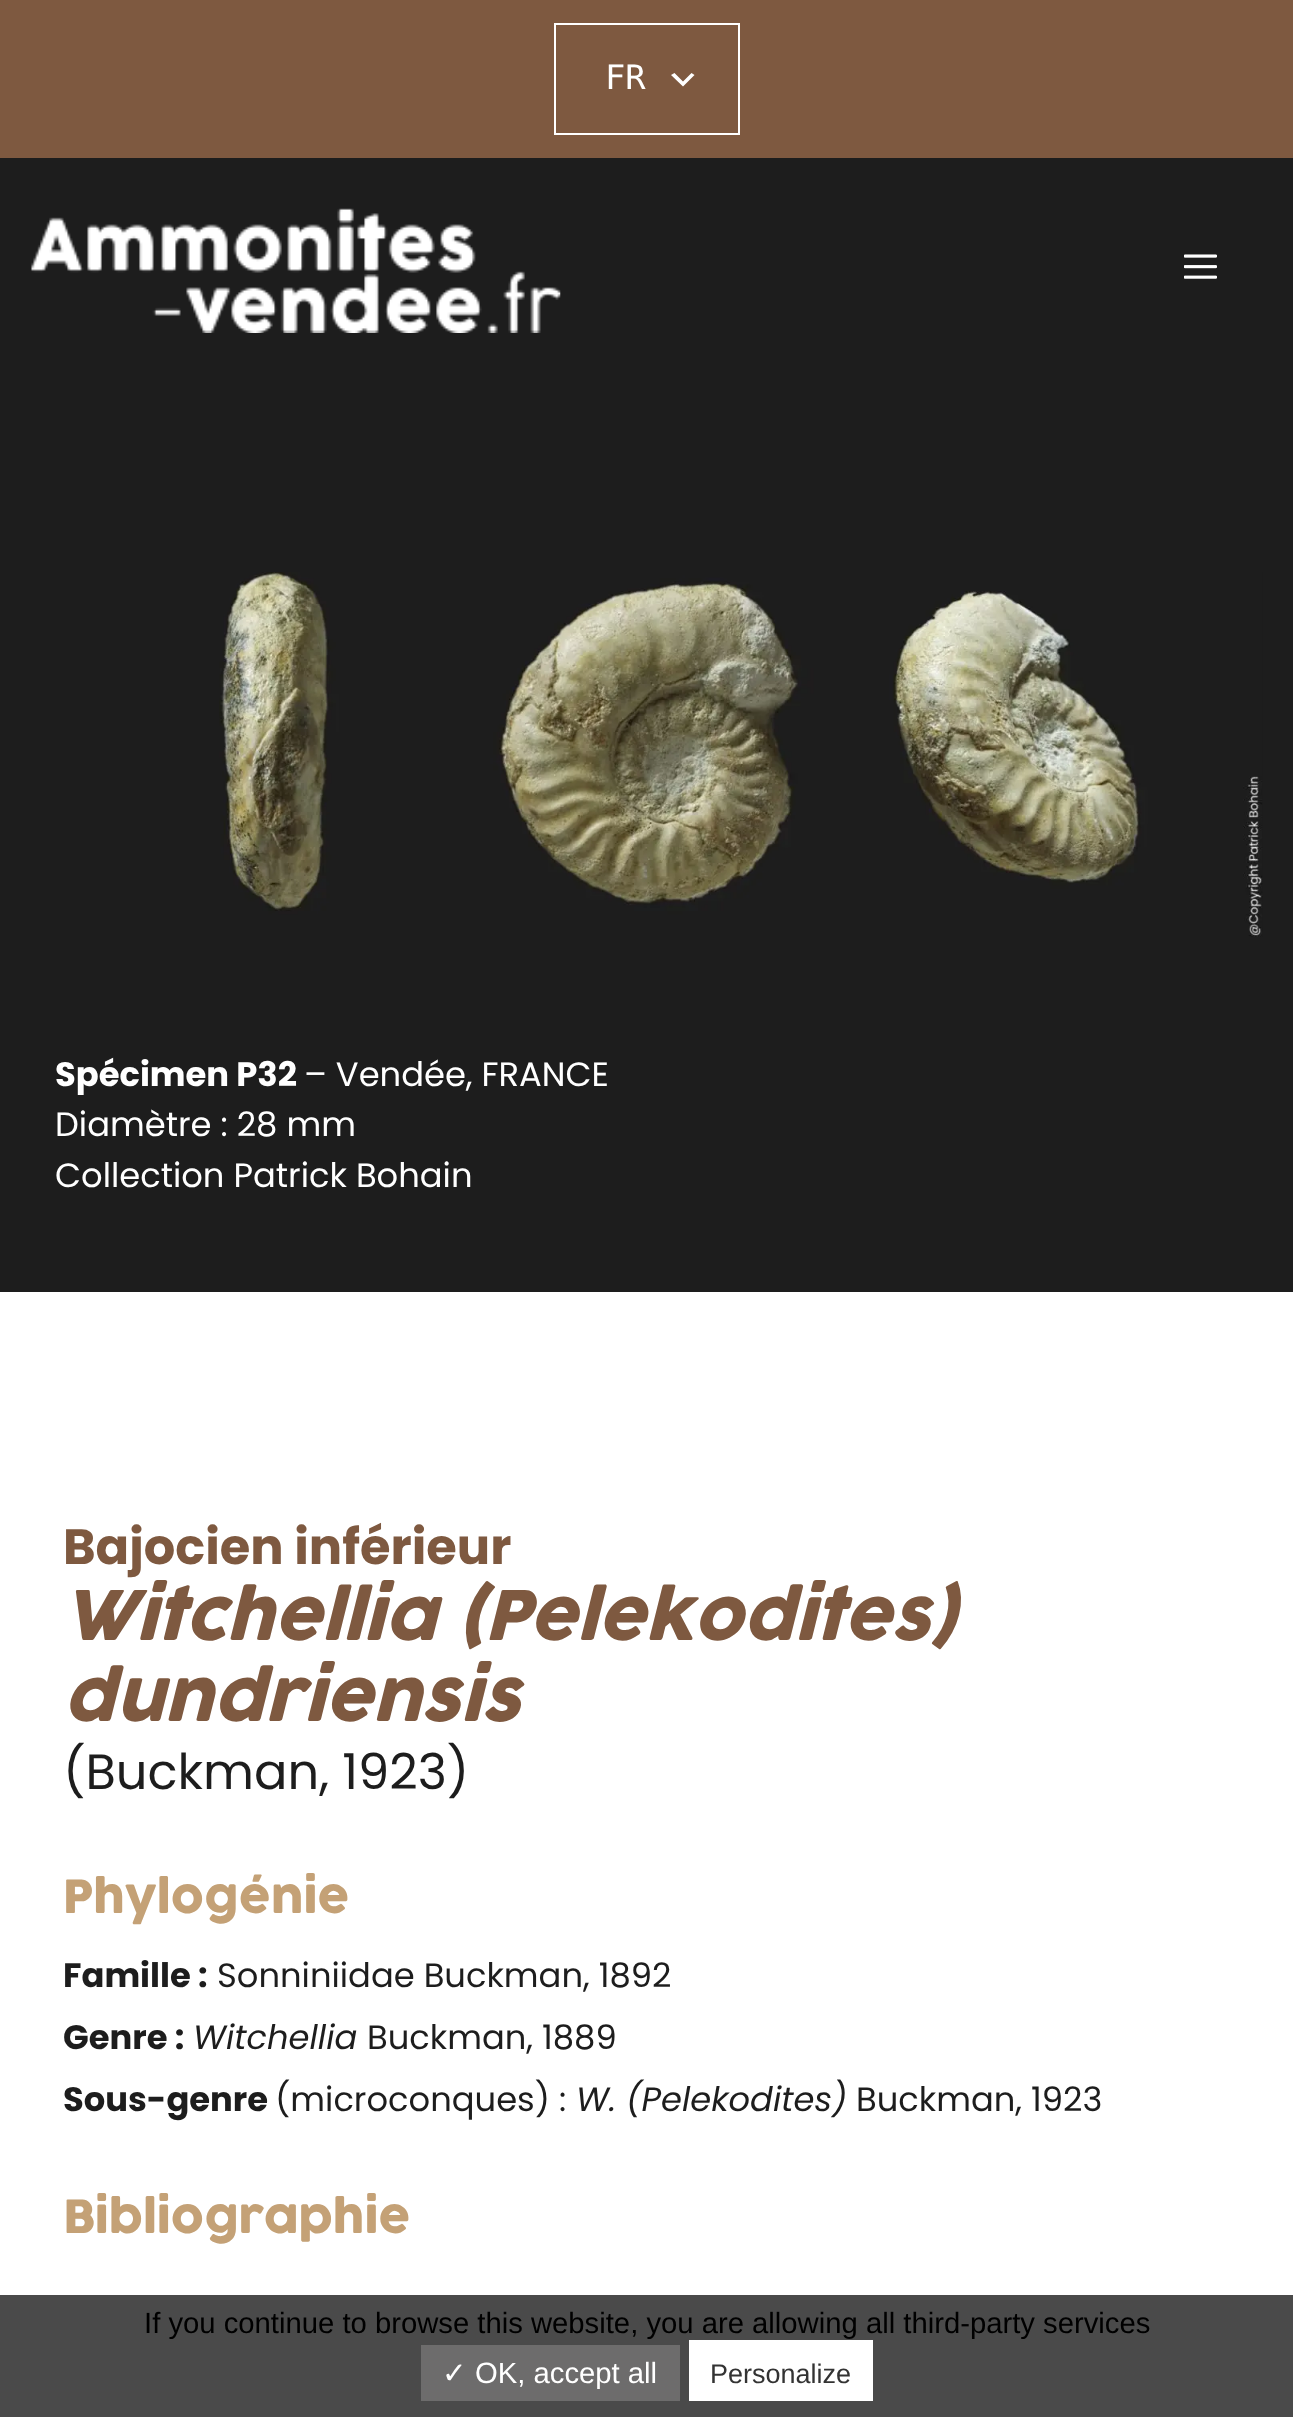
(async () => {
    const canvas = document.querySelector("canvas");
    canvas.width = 1293;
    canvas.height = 2417;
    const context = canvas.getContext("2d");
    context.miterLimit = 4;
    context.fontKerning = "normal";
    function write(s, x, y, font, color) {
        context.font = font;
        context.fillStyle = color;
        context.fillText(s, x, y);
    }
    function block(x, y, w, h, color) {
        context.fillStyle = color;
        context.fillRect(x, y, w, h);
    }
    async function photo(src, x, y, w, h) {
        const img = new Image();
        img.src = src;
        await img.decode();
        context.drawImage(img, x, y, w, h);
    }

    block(0, 0, 1293, 2417, "rgb(255, 255, 255)");
    block(0, 0, 1293, 158, "rgb(126, 89, 64)");
    block(554, 23, 186, 2, "rgb(255, 255, 255)");
    block(738, 23, 2, 112, "rgb(255, 255, 255)");
    block(554, 133, 186, 2, "rgb(255, 255, 255)");
    block(554, 23, 2, 112, "rgb(255, 255, 255)");
    write("FR", 605, 89, "33.75px DejaVu Sans Mono", "rgb(255, 255, 255)");
    context.beginPath();
    context.moveTo(674.5, 73);
    context.lineTo(683, 81.5);
    context.lineTo(691.5, 73);
    context.lineTo(694.5, 75);
    context.lineTo(683, 86.5);
    context.lineTo(671, 75);
    context.closePath();
    context.fill();
    block(0, 158, 1293, 1134, "rgb(29, 29, 29)");
    await photo("media/1.png", 31, 208, 530, 125);
    await photo("media/2.png", 1184, 254, 33, 25);
    await photo("media/3.png", 219, 572, 1044, 365);
    write("Spécimen P32", 55, 1086, "bold 33.75px Poppins", "rgb(255, 255, 255)");
    write("– Vendée, FRANCE", 304, 1086, "33.75px Poppins", "rgb(255, 255, 255)");
    write("Diamètre : 28 mm", 55, 1136, "33.75px Poppins", "rgb(255, 255, 255)");
    write("Collection Patrick Bohain", 55, 1187, "33.75px Poppins", "rgb(255, 255, 255)");
    write("Bajocien inférieur", 63, 1564, "bold 49.5px Poppins", "rgb(126, 89, 64)");
    write("Witchellia (Pelekodites)", 63, 1640, "italic 67.5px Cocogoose", "rgb(126, 89, 64)");
    write("dundriensis", 63, 1721, "italic 67.5px Cocogoose", "rgb(126, 89, 64)");
    write("(Buckman, 1923)", 63, 1789, "49.5px Poppins", "rgb(29, 29, 29)");
    write("Phylogénie", 63, 1913, "45px Cocogoose", "rgb(196, 161, 118)");
    write("Famille :", 63, 1987, "bold 33.75px Poppins", "rgb(29, 29, 29)");
    write("Sonniniidae Buckman, 1892", 217, 1987, "33.75px Poppins", "rgb(29, 29, 29)");
    write("Genre :", 63, 2049, "bold 33.75px Poppins", "rgb(29, 29, 29)");
    write("Witchellia", 193, 2049, "italic 33.75px Poppins", "rgb(29, 29, 29)");
    write("Buckman, 1889", 367, 2049, "33.75px Poppins", "rgb(29, 29, 29)");
    write("Sous-genre", 63, 2111, "bold 33.75px Poppins", "rgb(29, 29, 29)");
    write("(microconques) :", 275, 2111, "33.75px Poppins", "rgb(29, 29, 29)");
    write("W. (Pelekodites)", 576, 2111, "italic 33.75px Poppins", "rgb(29, 29, 29)");
    write("Buckman, 1923", 856, 2111, "33.75px Poppins", "rgb(29, 29, 29)");
    write("Bibliographie", 63, 2233, "45px Cocogoose", "rgb(196, 161, 118)");
    block(0, 2295, 1293, 122, "rgba(29, 29, 29, 0.8)");
    write("If you continue to browse this website, you are allowing all third-party services", 144, 2333, "29.25px Liberation Sans", "rgb(0, 0, 0)");
    block(421, 2345, 259, 56, "rgb(109, 108, 108)");
    write("✓", 442, 2383, "29.25px DejaVu Sans", "rgb(255, 255, 255)");
    write("OK, accept all", 475, 2383, "29.25px Liberation Sans", "rgb(255, 255, 255)");
    block(689, 2340, 184, 61, "rgb(255, 255, 255)");
    write("Personalize", 710, 2383, "27px Liberation Sans", "rgb(51, 51, 51)");
})();
